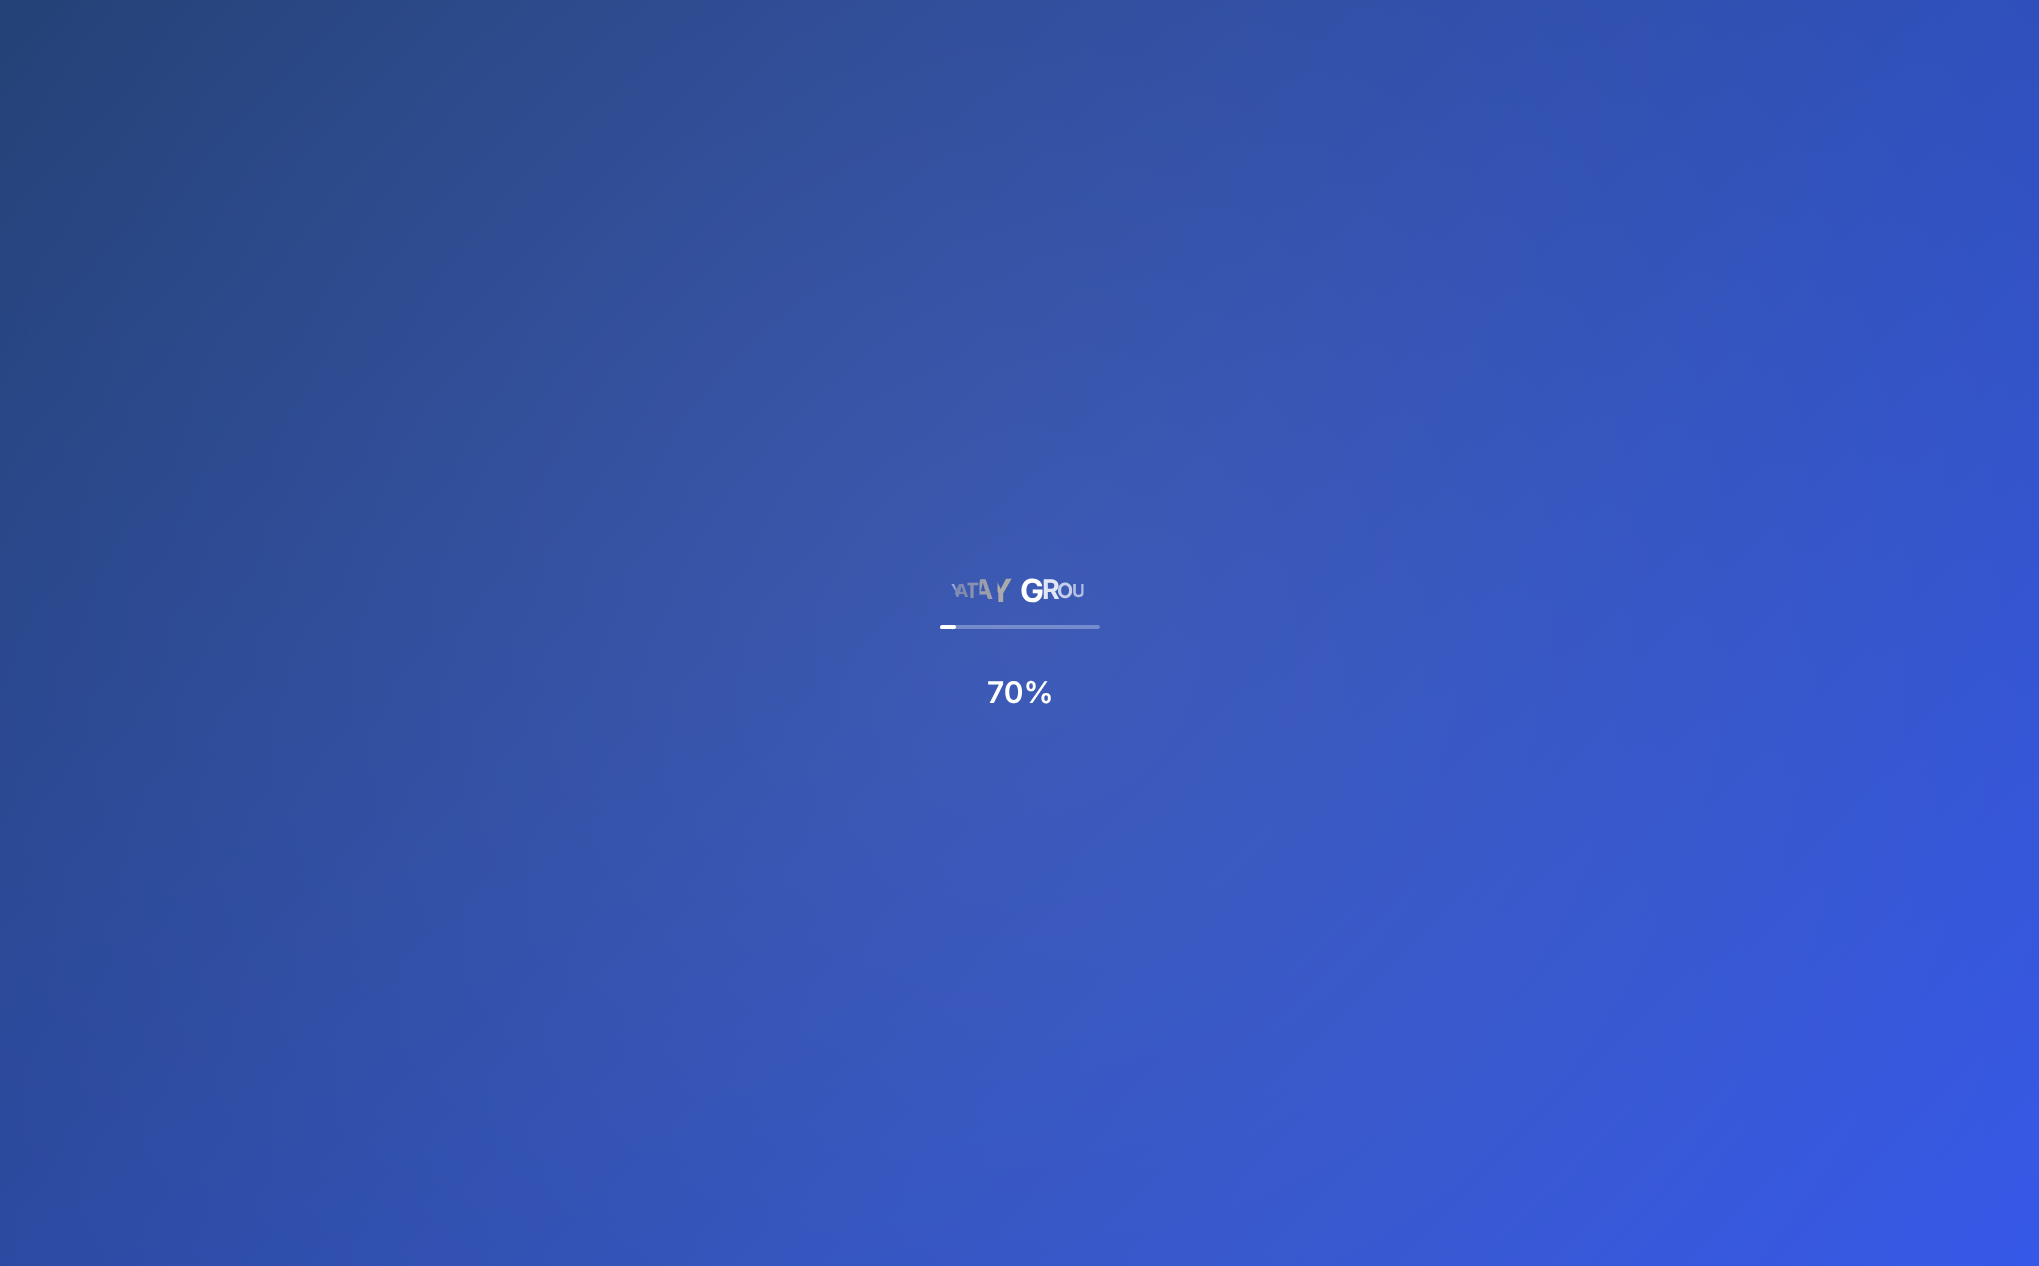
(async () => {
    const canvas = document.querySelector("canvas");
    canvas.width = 2039;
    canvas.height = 1266;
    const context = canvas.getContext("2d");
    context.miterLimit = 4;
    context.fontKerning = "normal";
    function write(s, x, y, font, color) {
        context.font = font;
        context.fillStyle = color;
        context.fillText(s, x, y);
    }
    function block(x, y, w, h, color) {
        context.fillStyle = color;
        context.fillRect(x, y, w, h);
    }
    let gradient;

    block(0, 0, 2039, 1266, "rgb(255, 255, 255)");
    gradient = context.createLinearGradient(774, -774, 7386, 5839);
    gradient.addColorStop(0, "rgb(30, 60, 114)");
    gradient.addColorStop(0.25, "rgb(48, 83, 231)");
    gradient.addColorStop(0.5, "rgb(42, 82, 152)");
    gradient.addColorStop(0.75, "rgb(48, 83, 231)");
    gradient.addColorStop(1, "rgb(30, 60, 114)");
    context.fillStyle = gradient;
    context.fillRect(0, 0, 2039, 1266);
    gradient = context.createRadialGradient(1020, 634, 0, 1020, 634, 2401);
    gradient.addColorStop(0, "rgba(255, 255, 255, 0.1)");
    gradient.addColorStop(0.7, "rgba(255, 255, 255, 0)");
    context.fillStyle = gradient;
    context.beginPath();
    context.moveTo(344, 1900);
    context.bezierCurveTo(-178, 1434, -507, 755, -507, 0);
    context.bezierCurveTo(-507, -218, -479, -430, -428, -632);
    context.lineTo(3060, -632);
    context.lineTo(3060, 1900);
    context.closePath();
    context.fill();
    context.font = "bold 15px Inter";
    gradient = context.createLinearGradient(951, 591, 1054, 591);
    gradient.addColorStop(0.03, "rgb(157, 172, 216)");
    gradient.addColorStop(0.06, "rgb(114, 129, 173)");
    context.fillStyle = gradient;
    context.fillText("Y", 951, 595);
    context.save();
    context.beginPath();
    context.moveTo(956.5, 577.5);
    context.lineTo(969, 577.5);
    context.lineTo(969, 604);
    context.lineTo(956.5, 604);
    context.closePath();
    context.clip();
    context.font = "bold 18px Inter";
    gradient = context.createLinearGradient(944, 591, 1070, 591);
    gradient.addColorStop(0.08, "rgb(179, 190, 224)");
    gradient.addColorStop(0.11, "rgb(128, 139, 173)");
    context.fillStyle = gradient;
    context.fillText("A", 955, 597);
    context.restore();
    context.save();
    context.beginPath();
    context.moveTo(967.5, 574.5);
    context.lineTo(982.5, 574.5);
    context.lineTo(982.5, 606.5);
    context.lineTo(967.5, 606.5);
    context.closePath();
    context.clip();
    context.font = "bold 21px Inter";
    gradient = context.createLinearGradient(937, 591, 1088, 591);
    gradient.addColorStop(0.13, "rgb(197, 205, 232)");
    gradient.addColorStop(0.16, "rgb(137, 146, 172)");
    context.fillStyle = gradient;
    context.fillText("T", 965, 598);
    context.restore();
    context.save();
    context.beginPath();
    context.moveTo(979.5, 570.5);
    context.lineTo(998.5, 570.5);
    context.lineTo(998.5, 610.5);
    context.lineTo(979.5, 610.5);
    context.closePath();
    context.clip();
    context.font = "bold 27px Inter";
    gradient = context.createLinearGradient(923, 591, 1112, 591);
    gradient.addColorStop(0.18, "rgb(227, 231, 243)");
    gradient.addColorStop(0.21, "rgb(154, 159, 171)");
    context.fillStyle = gradient;
    context.fillText("A", 973, 599);
    context.restore();
    context.save();
    context.beginPath();
    context.moveTo(997.5, 566.5);
    context.lineTo(1020, 566.5);
    context.lineTo(1020, 614.5);
    context.lineTo(997.5, 614.5);
    context.closePath();
    context.clip();
    context.font = "bold 32px Inter";
    gradient = context.createLinearGradient(907, 591, 1133, 591);
    gradient.addColorStop(0.23, "rgb(255, 255, 255)");
    gradient.addColorStop(0.26, "rgb(170, 170, 170)");
    context.fillStyle = gradient;
    context.fillText("Y", 989, 602);
    context.restore();
    context.font = "bold 32px Inter";
    gradient = context.createLinearGradient(907, 591, 1133, 591);
    gradient.addColorStop(0.26, "rgb(170, 170, 170)");
    gradient.addColorStop(0.29, "rgb(255, 255, 255)");
    context.fillStyle = gradient;
    context.fillText("G", 1020, 602);
    context.font = "bold 27px Inter";
    gradient = context.createLinearGradient(928, 591, 1117, 591);
    gradient.addColorStop(0.31, "rgb(154, 158, 172)");
    gradient.addColorStop(0.34, "rgb(226, 230, 244)");
    context.fillStyle = gradient;
    context.fillText("R", 1042, 599);
    context.save();
    context.beginPath();
    context.moveTo(1057.5, 574.5);
    context.lineTo(1072.5, 574.5);
    context.lineTo(1072.5, 606.5);
    context.lineTo(1057.5, 606.5);
    context.closePath();
    context.clip();
    context.font = "bold 21px Inter";
    gradient = context.createLinearGradient(952, 591, 1103, 591);
    gradient.addColorStop(0.36, "rgb(137, 146, 173)");
    gradient.addColorStop(0.39, "rgb(197, 206, 233)");
    context.fillStyle = gradient;
    context.fillText("O", 1057, 598);
    context.restore();
    context.save();
    context.beginPath();
    context.moveTo(1071, 577.5);
    context.lineTo(1083.5, 577.5);
    context.lineTo(1083.5, 604);
    context.lineTo(1071, 604);
    context.closePath();
    context.clip();
    context.font = "bold 18px Inter";
    gradient = context.createLinearGradient(970, 591, 1096, 591);
    gradient.addColorStop(0.41, "rgb(127, 139, 175)");
    gradient.addColorStop(0.44, "rgb(178, 190, 226)");
    context.fillStyle = gradient;
    context.fillText("U", 1072, 597);
    context.restore();
    context.fillStyle = "rgba(255, 255, 255, 0.3)";
    context.beginPath();
    context.moveTo(942, 625);
    context.lineTo(1098, 625);
    context.bezierCurveTo(1099, 625, 1100, 626, 1100, 627);
    context.bezierCurveTo(1100, 628, 1099, 629, 1098, 629);
    context.lineTo(942, 629);
    context.bezierCurveTo(941, 629, 940, 628, 940, 627);
    context.bezierCurveTo(940, 626, 941, 625, 942, 625);
    context.closePath();
    context.fill();
    context.fillStyle = "rgb(255, 255, 255)";
    context.beginPath();
    context.moveTo(942, 625);
    context.lineTo(952, 625);
    context.bezierCurveTo(953.5, 625, 955.5, 624.5, 956, 626.5);
    context.bezierCurveTo(956.5, 630, 951.5, 629, 950, 629);
    context.lineTo(941, 629);
    context.bezierCurveTo(939.5, 628, 940, 625, 942, 625);
    context.closePath();
    context.fill();
    write("70%", 987, 703, "600 30px Inter", "rgb(255, 255, 255)");
})();
